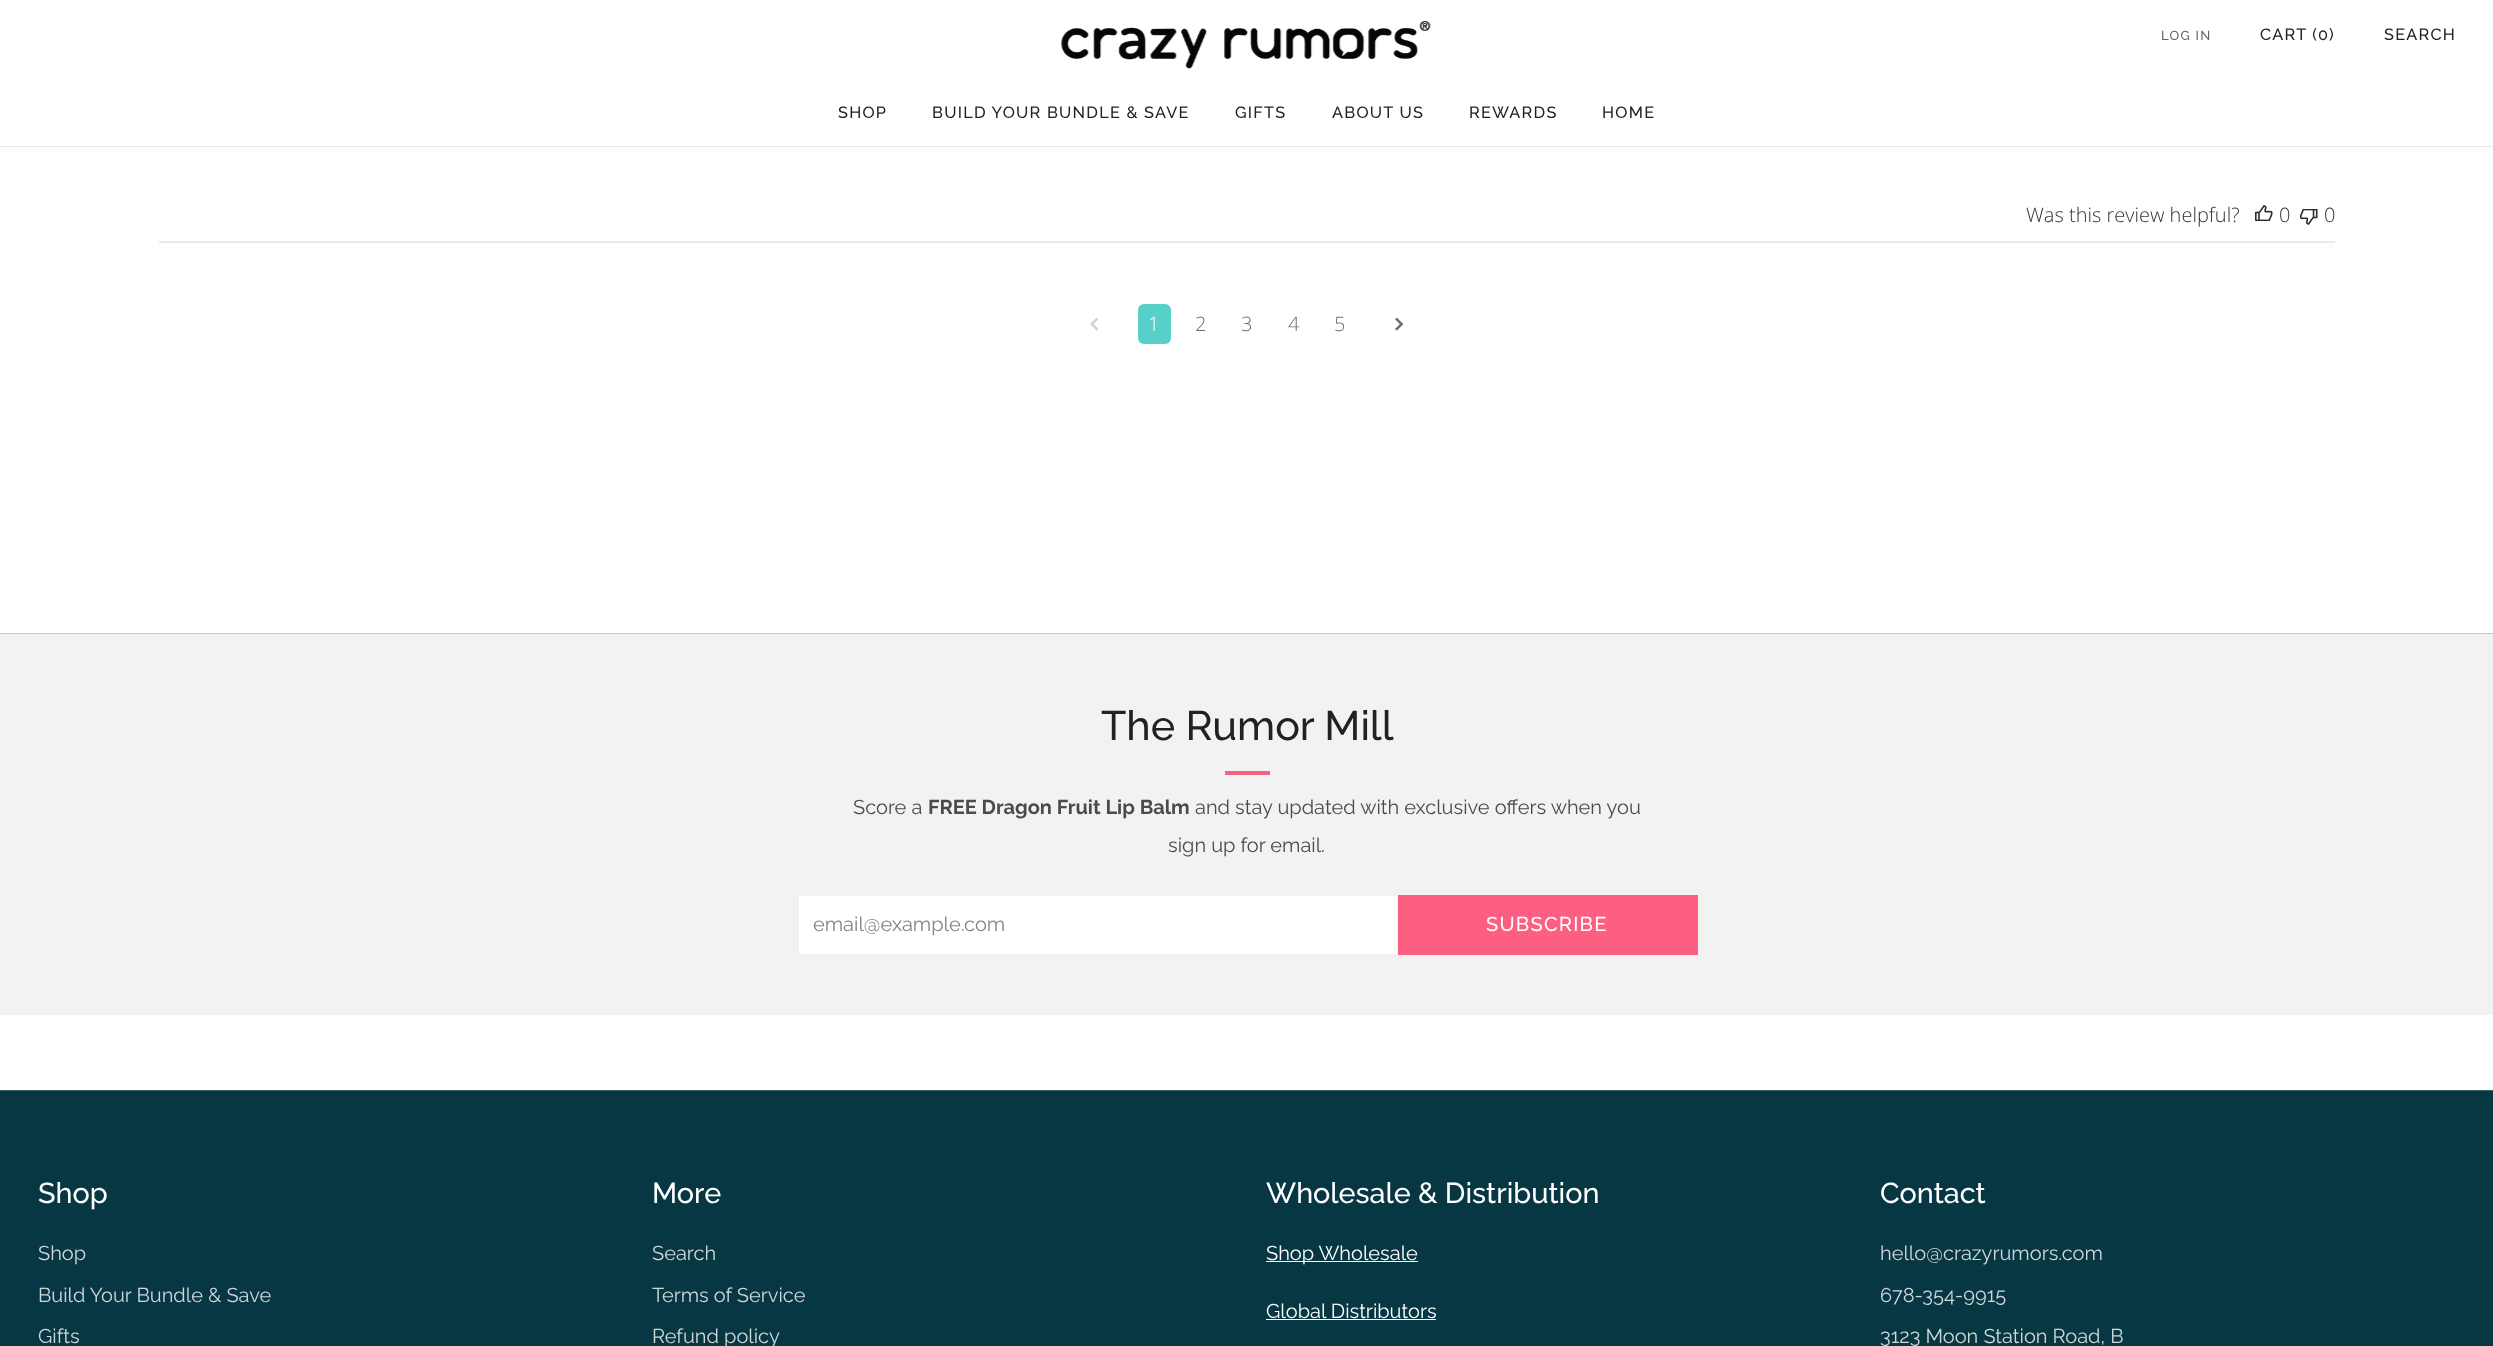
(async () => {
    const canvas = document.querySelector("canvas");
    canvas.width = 2493;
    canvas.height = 1346;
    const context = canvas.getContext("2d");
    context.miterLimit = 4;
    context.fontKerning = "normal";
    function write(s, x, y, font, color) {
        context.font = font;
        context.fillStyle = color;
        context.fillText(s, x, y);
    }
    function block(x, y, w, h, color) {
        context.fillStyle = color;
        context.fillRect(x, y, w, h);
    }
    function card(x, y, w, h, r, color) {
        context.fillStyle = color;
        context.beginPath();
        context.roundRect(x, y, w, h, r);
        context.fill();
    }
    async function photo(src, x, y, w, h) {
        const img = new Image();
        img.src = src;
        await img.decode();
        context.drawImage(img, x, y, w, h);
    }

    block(0, 0, 2493, 1346, "rgb(255, 255, 255)");
    block(0, 146, 2493, 1, "rgb(233, 233, 233)");
    await photo("media/1.png", 1061, 21, 370, 48);
    context.letterSpacing = "1.25px";
    write("LOG IN", 2161, 40, "500 13px Raleway", "rgb(100, 100, 100)");
    write("CART (0", 2260, 40, "500 16.25px Raleway", "rgb(33, 33, 33)");
    write(")", 2329, 40, "500 16.25px Raleway", "rgb(33, 33, 33)");
    write("SEARCH", 2384, 40, "500 16.25px Raleway", "rgb(33, 33, 33)");
    write("SHOP", 838, 118, "500 16.25px Raleway", "rgb(33, 33, 33)");
    write("BUILD YOUR BUNDLE & SAVE", 932, 118, "500 16.25px Raleway", "rgb(33, 33, 33)");
    write("GIFTS", 1235, 118, "500 16.25px Raleway", "rgb(33, 33, 33)");
    write("ABOUT US", 1332, 118, "500 16.25px Raleway", "rgb(33, 33, 33)");
    write("REWARDS", 1469, 118, "500 16.25px Raleway", "rgb(33, 33, 33)");
    write("HOME", 1602, 118, "500 16.25px Raleway", "rgb(33, 33, 33)");
    context.letterSpacing = "0px";
    write("Was this review helpful?", 2026, 222, "300 20px Open Sans", "rgb(55, 51, 48)");
    await photo("media/2.png", 2255, 205, 18, 16);
    write("0", 2279, 222, "300 20px Open Sans", "rgb(55, 51, 48)");
    await photo("media/3.png", 2300, 209, 18, 16);
    write("0", 2324, 222, "300 20px Open Sans", "rgb(55, 51, 48)");
    await photo("media/4.png", 158, 241, 2177, 7);
    await photo("media/5.png", 1090, 318, 9, 13);
    card(1138, 304, 33, 40, 6, "rgb(87, 208, 201)");
    write("1", 1148, 331, "300 20px Open Sans", "rgb(255, 255, 255)");
    write("2", 1195, 331, "300 20px Open Sans", "rgb(107, 109, 118)");
    write("3", 1241, 331, "300 20px Open Sans", "rgb(107, 109, 118)");
    write("4", 1288, 331, "300 20px Open Sans", "rgb(107, 109, 118)");
    write("5", 1334, 331, "300 20px Open Sans", "rgb(107, 109, 118)");
    await photo("media/6.png", 1395, 318, 9, 13);
    block(0, 634, 2493, 381, "rgb(242, 242, 242)");
    block(0, 633, 2493, 1, "rgb(200, 200, 200)");
    write("The Rumor Mill", 1101, 740, "500 41.25px Raleway", "rgb(33, 33, 33)");
    block(1225, 771, 45, 4, "rgb(253, 95, 131)");
    write("Score a", 853, 814, "20px Raleway", "rgb(75, 75, 75)");
    write("FREE Dragon Fruit Lip Balm", 928, 814, "bold 20px Raleway", "rgb(75, 75, 75)");
    write("and stay updated with exclusive offers when you", 1195, 814, "20px Raleway", "rgb(75, 75, 75)");
    write("sign up for email.", 1168, 852, "20px Raleway", "rgb(75, 75, 75)");
    block(799, 896, 598, 58, "rgb(255, 255, 255)");
    write("email@example.com", 813, 931, "20px Raleway", "rgb(133, 133, 133)");
    block(1398, 895, 300, 60, "rgb(253, 95, 131)");
    context.letterSpacing = "1.25px";
    write("SUBSCRIBE", 1486, 931, "500 20px Raleway", "rgb(255, 255, 255)");
    block(0, 1091, 2493, 255, "rgb(8, 55, 68)");
    block(0, 1090, 2493, 1, "rgb(57, 95, 105)");
    context.letterSpacing = "0px";
    write("Shop", 38, 1203, "500 28.75px Raleway", "rgb(255, 255, 255)");
    write("Shop", 38, 1260, "20px Raleway", "rgb(206, 215, 218)");
    write("Build Your Bundle & Save", 38, 1302, "20px Raleway", "rgb(206, 215, 218)");
    write("Gifts", 38, 1343, "20px Raleway", "rgb(206, 215, 218)");
    write("More", 652, 1203, "500 28.75px Raleway", "rgb(255, 255, 255)");
    write("Search", 652, 1260, "20px Raleway", "rgb(206, 215, 218)");
    write("Terms of Service", 652, 1302, "20px Raleway", "rgb(206, 215, 218)");
    write("Refund policy", 652, 1343, "20px Raleway", "rgb(206, 215, 218)");
    write("Wholesale & Distribution", 1266, 1203, "500 28.75px Raleway", "rgb(255, 255, 255)");
    block(1266, 1261, 152, 1, "rgb(255, 255, 255)");
    write("Shop Wholesale", 1266, 1260, "20px Raleway", "rgb(255, 255, 255)");
    write("Global Distributors", 1266, 1318, "20px Raleway", "rgb(255, 255, 255)");
    block(1266, 1319, 170, 1, "rgb(255, 255, 255)");
    write("Contact", 1880, 1203, "500 28.75px Raleway", "rgb(255, 255, 255)");
    write("hello@crazyrumors.com", 1880, 1260, "20px Raleway", "rgb(206, 215, 218)");
    write("678-354-9915", 1880, 1302, "20px Raleway", "rgb(206, 215, 218)");
    write("3123 Moon Station Road, B", 1880, 1343, "20px Raleway", "rgb(206, 215, 218)");
})();
